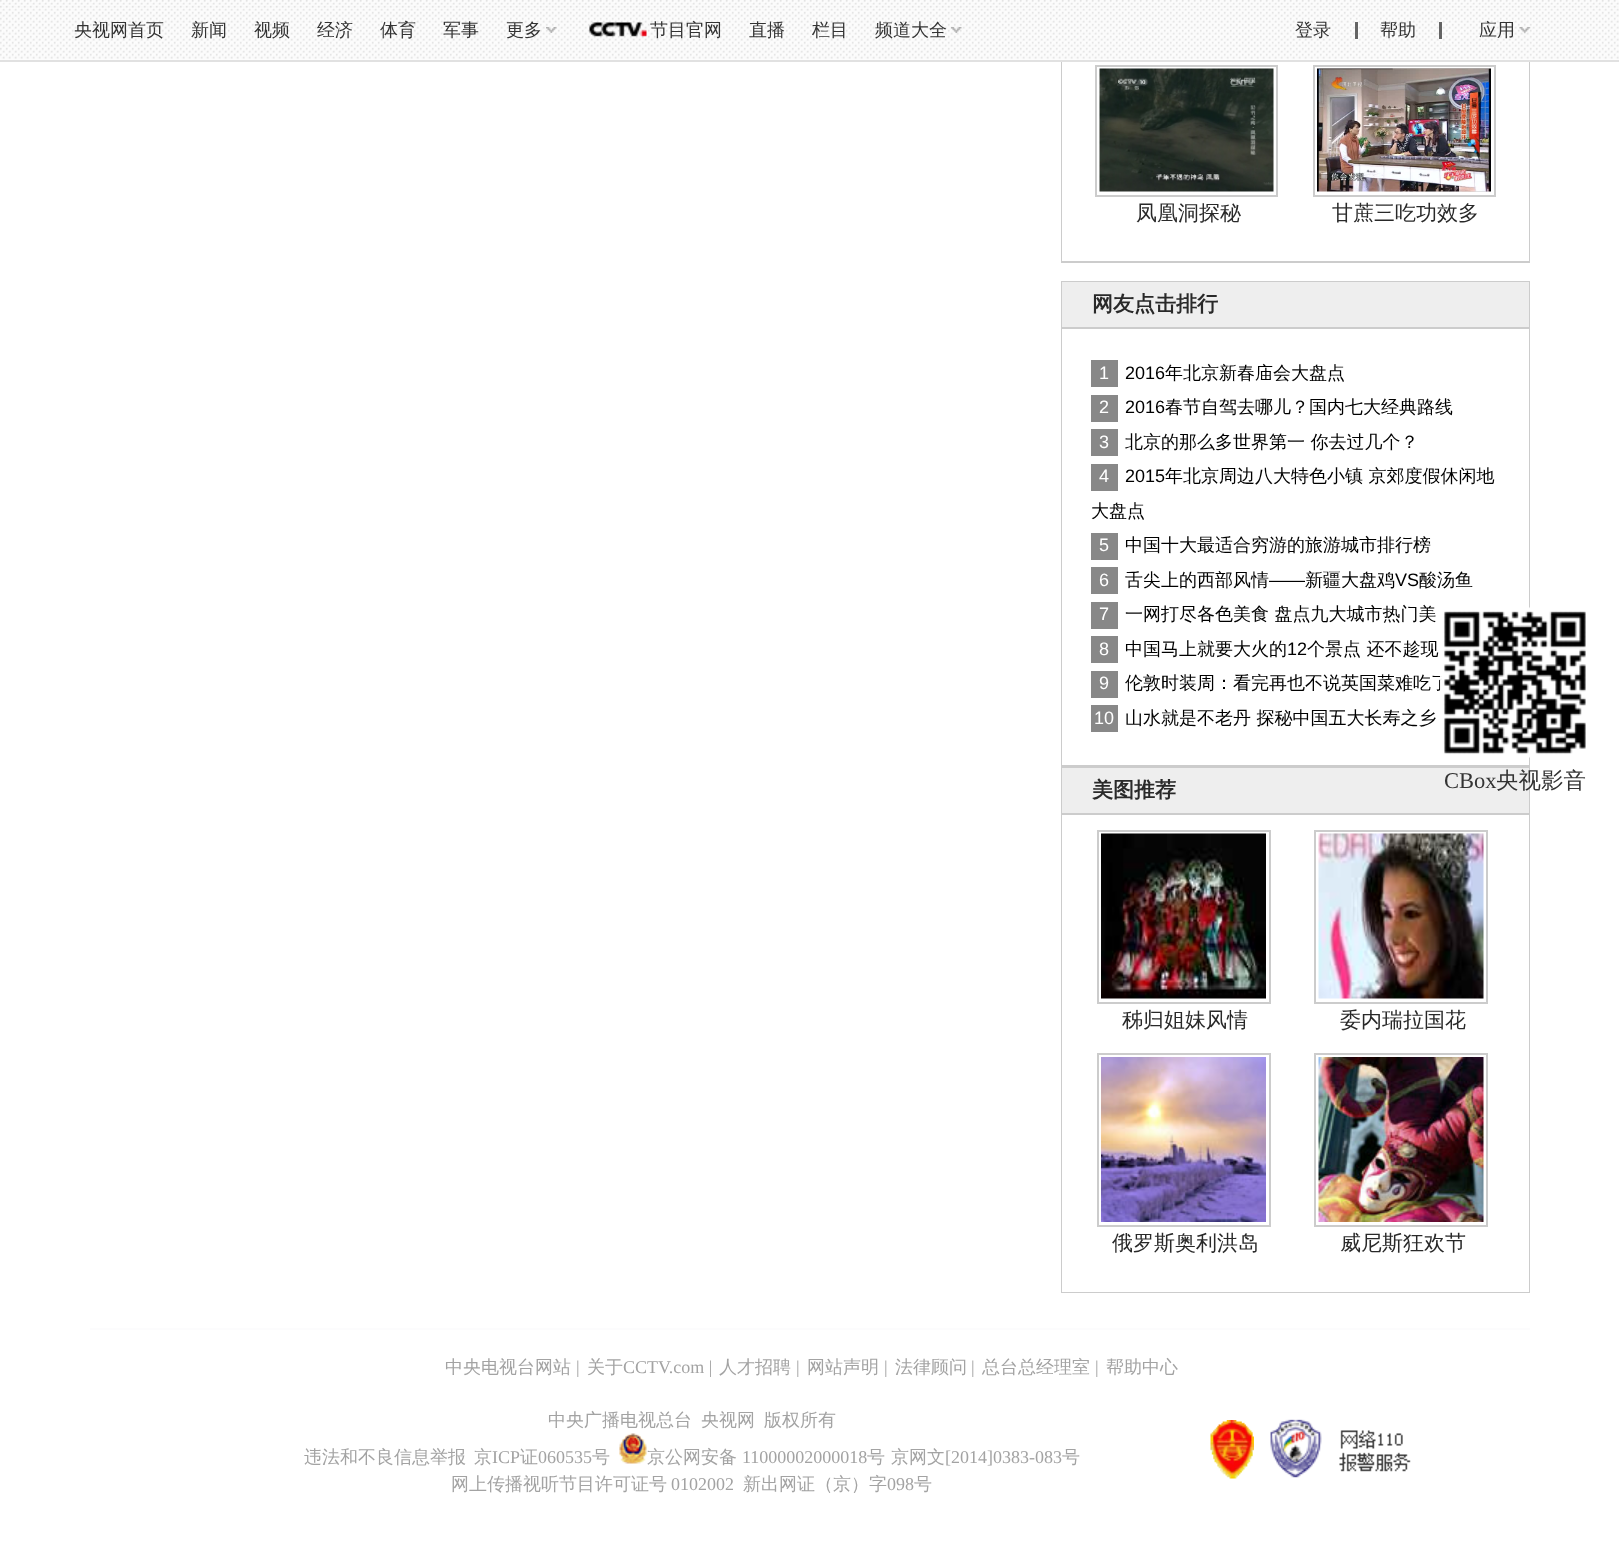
(async () => {
    const canvas = document.querySelector("canvas");
    canvas.width = 1619;
    canvas.height = 1554;
    const context = canvas.getContext("2d");
    context.miterLimit = 4;
    context.fontKerning = "normal";
    function write(s, x, y, font, color) {
        context.font = font;
        context.fillStyle = color;
        context.fillText(s, x, y);
    }
    function block(x, y, w, h, color) {
        context.fillStyle = color;
        context.fillRect(x, y, w, h);
    }
    async function photo(src, x, y, w, h) {
        const img = new Image();
        img.src = src;
        await img.decode();
        context.drawImage(img, x, y, w, h);
    }

    block(0, 0, 1619, 1554, "rgb(255, 255, 255)");
    context.strokeStyle = "rgb(204, 204, 204)";
    context.lineWidth = 2;
    context.strokeRect(1062, -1, 467, 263);
    await photo("media/1.png", 0, 0, 1619, 60);
    block(0, 60, 1619, 2, "rgb(225, 225, 225)");
    write("央视网首页", 74, 36, "500 18px WenQuanYi Zen Hei", "rgb(51, 51, 51)");
    write("新闻", 191, 36, "500 18px WenQuanYi Zen Hei", "rgb(51, 51, 51)");
    write("视频", 254, 36, "500 18px WenQuanYi Zen Hei", "rgb(51, 51, 51)");
    write("经济", 317, 36, "500 18px WenQuanYi Zen Hei", "rgb(51, 51, 51)");
    write("体育", 380, 36, "500 18px WenQuanYi Zen Hei", "rgb(51, 51, 51)");
    write("军事", 443, 36, "500 18px WenQuanYi Zen Hei", "rgb(51, 51, 51)");
    write("更多", 506, 36, "500 18px WenQuanYi Zen Hei", "rgb(51, 51, 51)");
    await photo("media/2.png", 546, 27, 11, 6);
    await photo("media/3.png", 589, 22, 58, 15);
    write("节目官网", 650, 36, "500 18px WenQuanYi Zen Hei", "rgb(51, 51, 51)");
    write("直播", 749, 36, "500 18px WenQuanYi Zen Hei", "rgb(51, 51, 51)");
    write("栏目", 812, 36, "500 18px WenQuanYi Zen Hei", "rgb(51, 51, 51)");
    write("频道大全", 875, 36, "500 18px WenQuanYi Zen Hei", "rgb(51, 51, 51)");
    await photo("media/4.png", 951, 27, 11, 6);
    write("登录", 1295, 36, "500 18px WenQuanYi Zen Hei", "rgb(51, 51, 51)");
    block(1355, 22, 3, 17, "rgba(51, 51, 51, 0.75)");
    write("帮助", 1380, 36, "500 18px WenQuanYi Zen Hei", "rgb(51, 51, 51)");
    block(1439, 22, 3, 17, "rgba(51, 51, 51, 0.75)");
    write("应用", 1479, 36, "500 18px WenQuanYi Zen Hei", "rgb(51, 51, 51)");
    await photo("media/5.png", 1519, 27, 12, 7);
    block(1062, 62, 467, 199, "rgb(255, 255, 255)");
    context.strokeRect(1096, 66, 181, 130);
    await photo("media/6.png", 1099, 68, 175, 124);
    write("凤凰洞探秘", 1136, 220, "500 21px WenQuanYi Zen Hei", "rgb(41, 41, 41)");
    context.strokeRect(1314, 66, 181, 130);
    await photo("media/7.png", 1317, 68, 174, 124);
    write("甘蔗三吃功效多", 1332, 220, "500 21px WenQuanYi Zen Hei", "rgb(41, 41, 41)");
    context.strokeRect(1062, 282, 467, 484);
    block(1062, 282, 467, 45, "rgb(238, 238, 238)");
    block(1062, 327, 467, 2, "rgb(204, 204, 204)");
    write("网友点击排行", 1092, 311, "bold 21px WenQuanYi Zen Hei", "rgb(41, 41, 41)");
    block(1062, 329, 467, 436, "rgb(255, 255, 255)");
    block(1091, 360, 27, 27, "rgb(136, 136, 136)");
    write("1", 1099, 379, "18px Liberation Sans", "rgb(255, 255, 255)");
    write("2016", 1125, 379, "18px Liberation Sans", "rgb(0, 0, 0)");
    write("年北京新春庙会大盘点", 1165, 379, "500 18px WenQuanYi Zen Hei", "rgb(0, 0, 0)");
    block(1091, 395, 27, 27, "rgb(136, 136, 136)");
    write("2", 1099, 413, "18px Liberation Sans", "rgb(255, 255, 255)");
    write("2016", 1125, 413, "18px Liberation Sans", "rgb(0, 0, 0)");
    write("春节自驾去哪儿？国内七大经典路线", 1165, 413, "500 18px WenQuanYi Zen Hei", "rgb(0, 0, 0)");
    block(1091, 429, 27, 27, "rgb(136, 136, 136)");
    write("3", 1099, 448, "18px Liberation Sans", "rgb(255, 255, 255)");
    write("北京的那么多世界第一 你去过几个？", 1125, 448, "500 18px WenQuanYi Zen Hei", "rgb(0, 0, 0)");
    block(1091, 464, 27, 27, "rgb(136, 136, 136)");
    write("4", 1099, 482, "18px Liberation Sans", "rgb(255, 255, 255)");
    write("2015", 1125, 482, "18px Liberation Sans", "rgb(0, 0, 0)");
    write("年北京周边八大特色小镇 京郊度假休闲地", 1165, 482, "500 18px WenQuanYi Zen Hei", "rgb(0, 0, 0)");
    write("大盘点", 1091, 517, "500 18px WenQuanYi Zen Hei", "rgb(0, 0, 0)");
    block(1091, 533, 27, 27, "rgb(136, 136, 136)");
    write("5", 1099, 551, "18px Liberation Sans", "rgb(255, 255, 255)");
    write("中国十大最适合穷游的旅游城市排行榜", 1125, 551, "500 18px WenQuanYi Zen Hei", "rgb(0, 0, 0)");
    block(1091, 567, 27, 27, "rgb(136, 136, 136)");
    write("6", 1099, 586, "18px Liberation Sans", "rgb(255, 255, 255)");
    write("舌尖上的西部风情", 1125, 586, "500 18px WenQuanYi Zen Hei", "rgb(0, 0, 0)");
    write("——", 1269, 586, "18px Liberation Sans", "rgb(0, 0, 0)");
    write("新疆大盘鸡", 1305, 586, "500 18px WenQuanYi Zen Hei", "rgb(0, 0, 0)");
    write("VS", 1395, 586, "18px Liberation Sans", "rgb(0, 0, 0)");
    write("酸汤鱼", 1419, 586, "500 18px WenQuanYi Zen Hei", "rgb(0, 0, 0)");
    block(1091, 602, 27, 27, "rgb(136, 136, 136)");
    write("7", 1099, 620, "18px Liberation Sans", "rgb(255, 255, 255)");
    write("一网打尽各色美食 盘点九大城市热门美", 1125, 620, "500 18px WenQuanYi Zen Hei", "rgb(0, 0, 0)");
    block(1091, 636, 27, 27, "rgb(136, 136, 136)");
    write("8", 1099, 655, "18px Liberation Sans", "rgb(255, 255, 255)");
    write("中国马上就要大火的", 1125, 655, "500 18px WenQuanYi Zen Hei", "rgb(0, 0, 0)");
    write("12", 1287, 655, "18px Liberation Sans", "rgb(0, 0, 0)");
    write("个景点 还不趁现", 1307, 655, "500 18px WenQuanYi Zen Hei", "rgb(0, 0, 0)");
    block(1091, 671, 27, 27, "rgb(136, 136, 136)");
    write("9", 1099, 689, "18px Liberation Sans", "rgb(255, 255, 255)");
    write("伦敦时装周：看完再也不说英国菜难吃了", 1125, 689, "500 18px WenQuanYi Zen Hei", "rgb(0, 0, 0)");
    block(1091, 705, 27, 27, "rgb(136, 136, 136)");
    write("10", 1094, 724, "18px Liberation Sans", "rgb(255, 255, 255)");
    write("山水就是不老丹 探秘中国五大长寿之乡", 1125, 724, "500 18px WenQuanYi Zen Hei", "rgb(0, 0, 0)");
    context.strokeRect(1062, 768, 467, 524);
    block(1062, 768, 467, 45, "rgb(238, 238, 238)");
    block(1062, 813, 467, 2, "rgb(204, 204, 204)");
    write("美图推荐", 1092, 797, "bold 21px WenQuanYi Zen Hei", "rgb(41, 41, 41)");
    block(1062, 815, 467, 477, "rgb(255, 255, 255)");
    context.strokeRect(1098, 831, 172, 172);
    await photo("media/8.png", 1101, 833, 165, 166);
    write("秭归姐妹风情", 1122, 1027, "500 21px WenQuanYi Zen Hei", "rgb(41, 41, 41)");
    context.strokeRect(1315, 831, 172, 172);
    await photo("media/9.png", 1318, 833, 166, 166);
    write("委内瑞拉国花", 1340, 1027, "500 21px WenQuanYi Zen Hei", "rgb(41, 41, 41)");
    context.strokeRect(1098, 1054, 172, 172);
    await photo("media/10.png", 1101, 1057, 165, 165);
    write("俄罗斯奥利洪岛", 1112, 1250, "500 21px WenQuanYi Zen Hei", "rgb(41, 41, 41)");
    context.strokeRect(1315, 1054, 172, 172);
    await photo("media/11.png", 1318, 1057, 166, 165);
    write("威尼斯狂欢节", 1340, 1250, "500 21px WenQuanYi Zen Hei", "rgb(41, 41, 41)");
    await photo("media/12.png", 1440, 607, 146, 151);
    write("CBox", 1444, 788, "22.5px Liberation Serif", "rgb(51, 51, 51)");
    write("央视影音", 1496, 788, "500 22.5px WenQuanYi Zen Hei", "rgb(51, 51, 51)");
    block(90, 1328, 1440, 2, "rgb(252, 252, 253)");
    write("中央电视台网站", 445, 1373, "500 18px WenQuanYi Zen Hei", "rgb(163, 163, 163)");
    write("|", 576, 1373, "18px Liberation Serif", "rgb(163, 163, 163)");
    write("关于", 587, 1373, "500 18px WenQuanYi Zen Hei", "rgb(163, 163, 163)");
    write("CCTV.com |", 623, 1373, "18px Liberation Serif", "rgb(163, 163, 163)");
    write("人才招聘", 719, 1373, "500 18px WenQuanYi Zen Hei", "rgb(163, 163, 163)");
    write("|", 796, 1373, "18px Liberation Serif", "rgb(163, 163, 163)");
    write("网站声明", 807, 1373, "500 18px WenQuanYi Zen Hei", "rgb(163, 163, 163)");
    write("|", 884, 1373, "18px Liberation Serif", "rgb(163, 163, 163)");
    write("法律顾问", 895, 1373, "500 18px WenQuanYi Zen Hei", "rgb(163, 163, 163)");
    write("|", 971, 1373, "18px Liberation Serif", "rgb(163, 163, 163)");
    write("总台总经理室", 982, 1373, "500 18px WenQuanYi Zen Hei", "rgb(163, 163, 163)");
    write("|", 1095, 1373, "18px Liberation Serif", "rgb(163, 163, 163)");
    write("帮助中心", 1106, 1373, "500 18px WenQuanYi Zen Hei", "rgb(163, 163, 163)");
    write("中央广播电视总台", 548, 1426, "500 18px WenQuanYi Zen Hei", "rgb(163, 163, 163)");
    write("央视网", 701, 1426, "500 18px WenQuanYi Zen Hei", "rgb(163, 163, 163)");
    write("版权所有", 764, 1426, "500 18px WenQuanYi Zen Hei", "rgb(163, 163, 163)");
    write("违法和不良信息举报", 304, 1463, "500 18px WenQuanYi Zen Hei", "rgb(163, 163, 163)");
    write("京", 474, 1463, "500 18px WenQuanYi Zen Hei", "rgb(163, 163, 163)");
    write("ICP", 492, 1463, "18px Liberation Serif", "rgb(163, 163, 163)");
    write("证", 520, 1463, "500 18px WenQuanYi Zen Hei", "rgb(163, 163, 163)");
    write("060535", 538, 1463, "18px Liberation Serif", "rgb(163, 163, 163)");
    write("号", 592, 1463, "500 18px WenQuanYi Zen Hei", "rgb(163, 163, 163)");
    await photo("media/13.png", 619, 1433, 28, 31);
    write("京公网安备", 647, 1463, "500 18px WenQuanYi Zen Hei", "rgb(163, 163, 163)");
    write("11000002000018", 742, 1463, "18px Liberation Serif", "rgb(163, 163, 163)");
    write("号", 867, 1463, "500 18px WenQuanYi Zen Hei", "rgb(163, 163, 163)");
    write("京网文", 891, 1463, "500 18px WenQuanYi Zen Hei", "rgb(163, 163, 163)");
    write("[2014]0383-083", 945, 1463, "18px Liberation Serif", "rgb(163, 163, 163)");
    write("号", 1062, 1463, "500 18px WenQuanYi Zen Hei", "rgb(163, 163, 163)");
    write("网上传播视听节目许可证号", 451, 1490, "500 18px WenQuanYi Zen Hei", "rgb(163, 163, 163)");
    write("0102002", 671, 1490, "18px Liberation Serif", "rgb(163, 163, 163)");
    write("新出网证（京）字", 743, 1490, "500 18px WenQuanYi Zen Hei", "rgb(163, 163, 163)");
    write("098", 887, 1490, "18px Liberation Serif", "rgb(163, 163, 163)");
    write("号", 914, 1490, "500 18px WenQuanYi Zen Hei", "rgb(163, 163, 163)");
    await photo("media/14.png", 1210, 1420, 44, 59);
    await photo("media/15.png", 1270, 1419, 141, 59);
})();
